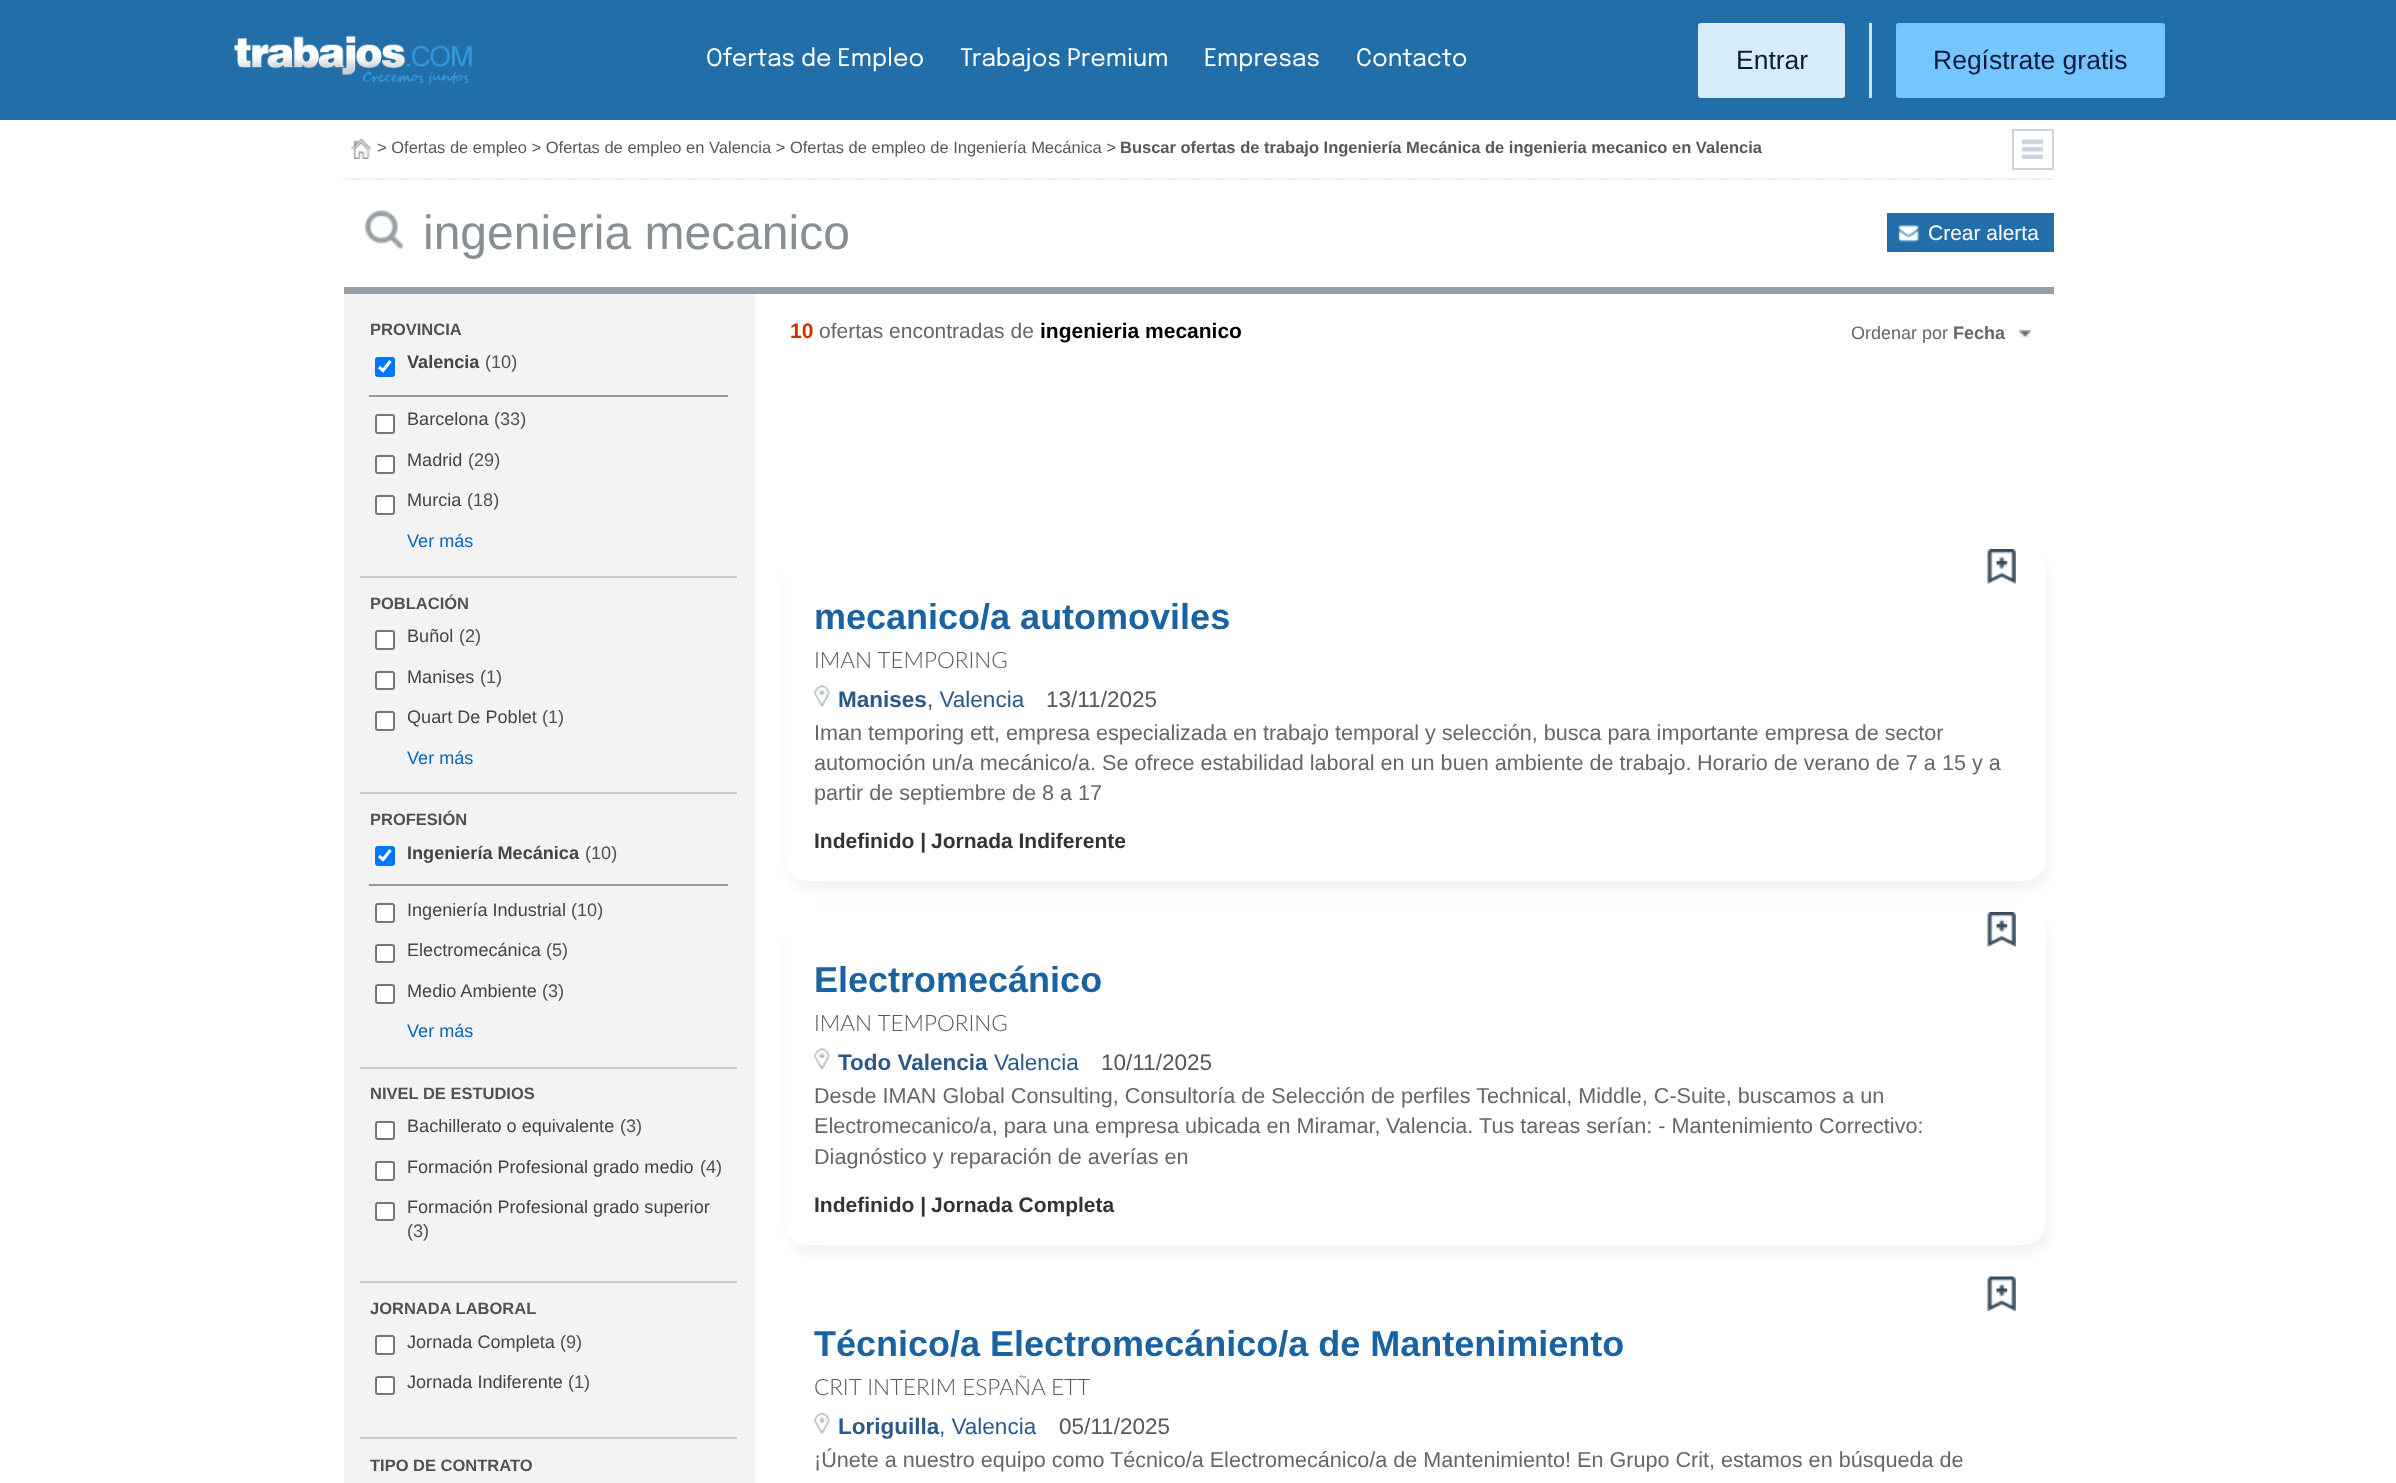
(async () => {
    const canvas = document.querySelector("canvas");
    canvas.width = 2396;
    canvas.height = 1483;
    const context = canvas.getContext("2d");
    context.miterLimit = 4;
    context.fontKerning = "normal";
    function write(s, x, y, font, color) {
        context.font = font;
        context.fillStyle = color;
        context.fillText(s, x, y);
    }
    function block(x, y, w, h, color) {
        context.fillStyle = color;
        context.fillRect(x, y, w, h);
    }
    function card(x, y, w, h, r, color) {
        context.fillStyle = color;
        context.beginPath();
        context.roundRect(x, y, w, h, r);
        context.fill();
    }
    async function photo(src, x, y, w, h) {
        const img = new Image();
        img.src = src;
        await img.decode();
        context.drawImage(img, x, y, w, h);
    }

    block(0, 0, 2396, 1483, "rgb(255, 255, 255)");
    block(0, 0, 2396, 120, "rgb(33, 110, 168)");
    await photo("media/1.png", 234, 35, 238, 50);
    write("Ofertas de Empleo", 706, 66, "24px Epilogue", "rgb(255, 255, 255)");
    write("Trabajos Premium", 960, 66, "24px Epilogue", "rgb(255, 255, 255)");
    write("Empresas", 1204, 66, "24px Epilogue", "rgb(255, 255, 255)");
    write("Contacto", 1356, 66, "24px Epilogue", "rgb(255, 255, 255)");
    context.fillStyle = "rgb(215, 236, 252)";
    context.beginPath();
    context.roundRect(1699, 24, 145, 73, 2);
    context.fill();
    context.strokeStyle = "rgb(215, 236, 252)";
    context.lineWidth = 2;
    context.stroke();
    write("Entrar", 1736, 69, "26.5px Liberation Sans", "rgb(12, 28, 59)");
    block(1869, 23, 3, 75, "rgb(214, 221, 235)");
    context.fillStyle = "rgb(117, 197, 255)";
    context.beginPath();
    context.roundRect(1897, 24, 267, 73, 2);
    context.fill();
    context.strokeStyle = "rgb(117, 197, 255)";
    context.stroke();
    write("Regístrate gratis", 1933, 69, "26.5px Liberation Sans", "rgb(12, 28, 59)");
    context.beginPath();
    context.moveTo(343.5, 179);
    context.lineTo(2053.5, 179);
    context.strokeStyle = "rgb(219, 219, 219)";
    context.lineWidth = 1.5;
    context.setLineDash([1.5, 1.5]);
    context.stroke();
    await photo("media/2.png", 351, 138, 21, 21);
    write("> Ofertas de empleo > Ofertas de empleo en Valencia > Ofertas de empleo de Ingeniería Mecánica >", 377, 153, "16.5px Liberation Sans", "rgb(88, 88, 88)");
    write("Buscar ofertas de trabajo Ingeniería Mecánica de ingenieria mecanico en Valencia", 1120, 153, "bold 16.5px Liberation Sans", "rgb(88, 88, 88)");
    context.strokeStyle = "rgb(202, 213, 223)";
    context.lineWidth = 2;
    context.setLineDash([]);
    context.strokeRect(2013, 130, 40, 39);
    await photo("media/3.png", 2022, 139, 21, 20);
    block(344, 287, 1710, 7, "rgb(150, 159, 163)");
    await photo("media/4.png", 364, 210, 40, 39);
    write("ingenieria mecanico", 423, 249, "48px Liberation Sans", "rgb(134, 143, 147)");
    block(1887, 213, 167, 39, "rgb(33, 110, 168)");
    await photo("media/5.png", 1898, 225, 21, 17);
    write("Crear alerta", 1928, 240, "21px Liberation Sans", "rgb(255, 255, 255)");
    block(344, 294, 411, 1189, "rgb(243, 243, 244)");
    block(360, 576, 377, 2, "rgb(199, 205, 208)");
    write("PROVINCIA", 370, 335, "bold 16.5px Liberation Sans", "rgb(78, 82, 84)");
    block(369, 395, 359, 2, "rgb(153, 153, 153)");
    card(375, 357, 20, 20, 3, "rgb(0, 117, 255)");
    context.beginPath();
    context.moveTo(379, 367);
    context.lineTo(383, 370.5);
    context.lineTo(390.5, 361);
    context.strokeStyle = "rgb(255, 255, 255)";
    context.lineWidth = 3.1;
    context.stroke();
    write("Valencia", 407, 368, "bold 18.1px Liberation Sans", "rgb(68, 68, 68)");
    write("(10)", 485, 368, "18.1px Liberation Sans", "rgb(78, 82, 84)");
    context.fillStyle = "rgb(255, 255, 255)";
    context.beginPath();
    context.roundRect(376, 415, 18, 18, 2);
    context.fill();
    context.strokeStyle = "rgb(118, 118, 118)";
    context.lineWidth = 2;
    context.stroke();
    write("Barcelona", 407, 425, "18.1px Liberation Sans", "rgb(68, 68, 68)");
    write("(33)", 494, 425, "18.1px Liberation Sans", "rgb(78, 82, 84)");
    context.fillStyle = "rgb(255, 255, 255)";
    context.beginPath();
    context.roundRect(376, 456, 18, 17, 2);
    context.fill();
    context.stroke();
    write("Madrid", 407, 466, "18.1px Liberation Sans", "rgb(68, 68, 68)");
    write("(29)", 468, 466, "18.1px Liberation Sans", "rgb(78, 82, 84)");
    context.fillStyle = "rgb(255, 255, 255)";
    context.beginPath();
    context.roundRect(376, 496, 18, 18, 2);
    context.fill();
    context.stroke();
    write("Murcia", 407, 506, "18.1px Liberation Sans", "rgb(68, 68, 68)");
    write("(18)", 467, 506, "18.1px Liberation Sans", "rgb(78, 82, 84)");
    write("Ver más", 407, 547, "18.1px Liberation Sans", "rgb(3, 105, 185)");
    block(360, 792, 377, 2, "rgb(199, 205, 208)");
    write("POBLACIÓN", 370, 609, "bold 16.5px Liberation Sans", "rgb(78, 82, 84)");
    context.fillStyle = "rgb(255, 255, 255)";
    context.beginPath();
    context.roundRect(376, 631, 18, 18, 2);
    context.fill();
    context.stroke();
    write("Buñol", 407, 642, "18.1px Liberation Sans", "rgb(68, 68, 68)");
    write("(2)", 459, 642, "18.1px Liberation Sans", "rgb(78, 82, 84)");
    context.fillStyle = "rgb(255, 255, 255)";
    context.beginPath();
    context.roundRect(376, 672, 18, 17, 2);
    context.fill();
    context.stroke();
    write("Manises", 407, 683, "18.1px Liberation Sans", "rgb(68, 68, 68)");
    write("(1)", 480, 683, "18.1px Liberation Sans", "rgb(78, 82, 84)");
    context.fillStyle = "rgb(255, 255, 255)";
    context.beginPath();
    context.roundRect(376, 712, 18, 18, 2);
    context.fill();
    context.stroke();
    write("Quart De Poblet", 407, 723, "18.1px Liberation Sans", "rgb(68, 68, 68)");
    write("(1)", 542, 723, "18.1px Liberation Sans", "rgb(78, 82, 84)");
    write("Ver más", 407, 764, "18.1px Liberation Sans", "rgb(3, 105, 185)");
    block(360, 1067, 377, 2, "rgb(199, 205, 208)");
    write("PROFESIÓN", 370, 825, "bold 16.5px Liberation Sans", "rgb(78, 82, 84)");
    block(369, 884, 359, 2, "rgb(153, 153, 153)");
    card(375, 846, 20, 20, 3, "rgb(0, 117, 255)");
    context.beginPath();
    context.moveTo(379, 856);
    context.lineTo(383, 859.5);
    context.lineTo(390.5, 850);
    context.strokeStyle = "rgb(255, 255, 255)";
    context.lineWidth = 3.1;
    context.stroke();
    write("Ingeniería Mecánica", 407, 859, "bold 18.1px Liberation Sans", "rgb(68, 68, 68)");
    write("(10)", 585, 859, "18.1px Liberation Sans", "rgb(78, 82, 84)");
    context.fillStyle = "rgb(255, 255, 255)";
    context.beginPath();
    context.roundRect(376, 904, 18, 18, 2);
    context.fill();
    context.strokeStyle = "rgb(118, 118, 118)";
    context.lineWidth = 2;
    context.stroke();
    write("Ingeniería Industrial", 407, 916, "18.1px Liberation Sans", "rgb(68, 68, 68)");
    write("(10)", 571, 916, "18.1px Liberation Sans", "rgb(78, 82, 84)");
    context.fillStyle = "rgb(255, 255, 255)";
    context.beginPath();
    context.roundRect(376, 945, 18, 17, 2);
    context.fill();
    context.stroke();
    write("Electromecánica", 407, 956, "18.1px Liberation Sans", "rgb(68, 68, 68)");
    write("(5)", 546, 956, "18.1px Liberation Sans", "rgb(78, 82, 84)");
    context.fillStyle = "rgb(255, 255, 255)";
    context.beginPath();
    context.roundRect(376, 985, 18, 18, 2);
    context.fill();
    context.stroke();
    write("Medio Ambiente", 407, 997, "18.1px Liberation Sans", "rgb(68, 68, 68)");
    write("(3)", 542, 997, "18.1px Liberation Sans", "rgb(78, 82, 84)");
    write("Ver más", 407, 1037, "18.1px Liberation Sans", "rgb(3, 105, 185)");
    block(360, 1281, 377, 2, "rgb(199, 205, 208)");
    write("NIVEL DE ESTUDIOS", 370, 1099, "bold 16.5px Liberation Sans", "rgb(78, 82, 84)");
    context.fillStyle = "rgb(255, 255, 255)";
    context.beginPath();
    context.roundRect(376, 1122, 18, 17, 2);
    context.fill();
    context.stroke();
    write("Bachillerato o equivalente", 407, 1132, "18.1px Liberation Sans", "rgb(68, 68, 68)");
    write("(3)", 620, 1132, "18.1px Liberation Sans", "rgb(78, 82, 84)");
    context.fillStyle = "rgb(255, 255, 255)";
    context.beginPath();
    context.roundRect(376, 1162, 18, 18, 2);
    context.fill();
    context.stroke();
    write("Formación Profesional grado medio", 407, 1173, "18.1px Liberation Sans", "rgb(68, 68, 68)");
    write("(4)", 700, 1173, "18.1px Liberation Sans", "rgb(78, 82, 84)");
    context.fillStyle = "rgb(255, 255, 255)";
    context.beginPath();
    context.roundRect(376, 1203, 18, 17, 2);
    context.fill();
    context.stroke();
    write("Formación Profesional grado superior", 407, 1213, "18.1px Liberation Sans", "rgb(68, 68, 68)");
    write("(3)", 407, 1237, "18.1px Liberation Sans", "rgb(78, 82, 84)");
    block(360, 1437, 377, 2, "rgb(199, 205, 208)");
    write("JORNADA LABORAL", 370, 1314, "bold 16.5px Liberation Sans", "rgb(78, 82, 84)");
    context.fillStyle = "rgb(255, 255, 255)";
    context.beginPath();
    context.roundRect(376, 1336, 18, 18, 2);
    context.fill();
    context.stroke();
    write("Jornada Completa", 407, 1348, "18.1px Liberation Sans", "rgb(68, 68, 68)");
    write("(9)", 560, 1348, "18.1px Liberation Sans", "rgb(78, 82, 84)");
    context.fillStyle = "rgb(255, 255, 255)";
    context.beginPath();
    context.roundRect(376, 1377, 18, 17, 2);
    context.fill();
    context.stroke();
    write("Jornada Indiferente", 407, 1388, "18.1px Liberation Sans", "rgb(68, 68, 68)");
    write("(1)", 568, 1388, "18.1px Liberation Sans", "rgb(78, 82, 84)");
    write("TIPO DE CONTRATO", 370, 1471, "bold 16.5px Liberation Sans", "rgb(78, 82, 84)");
    write("10", 790, 338, "bold 21px Liberation Sans", "rgb(204, 51, 0)");
    write("ofertas encontradas de", 819, 338, "21px Liberation Sans", "rgb(102, 102, 102)");
    write("ingenieria mecanico", 1040, 338, "bold 21px Liberation Sans", "rgb(0, 0, 0)");
    await photo("media/6.png", 2019, 330, 12, 8);
    write("Ordenar por", 1851, 339, "18px Liberation Sans", "rgb(102, 102, 102)");
    write("Fecha", 1953, 339, "bold 18px Liberation Sans", "rgb(102, 102, 102)");
    context.fillStyle = "rgba(0, 0, 0, 0.05)";
    context.filter = "blur(7.5px)";
    context.beginPath();
    context.roundRect(788, 557, 1261, 333, 23);
    context.fill();
    context.filter = "none";
    card(785, 548, 1261, 333, 23, "rgb(255, 255, 255)");
    await photo("media/7.png", 1987, 549, 29, 35);
    write("mecanico/a automoviles", 814, 629, "bold 36px Liberation Sans", "rgb(26, 98, 160)");
    write("IMAN TEMPORING", 814, 668, "300 22.5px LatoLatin", "rgb(88, 88, 88)");
    await photo("media/8.png", 814, 685, 16, 22);
    write("Manises", 838, 707, "bold 22.5px Liberation Sans", "rgb(43, 89, 134)");
    write(", Valencia", 927, 707, "22.5px Liberation Sans", "rgb(43, 89, 134)");
    write("13/11/2025", 1046, 707, "22.5px Liberation Sans", "rgb(88, 88, 88)");
    write("Iman temporing ett, empresa especializada en trabajo temporal y selección, busca para importante empresa de sector", 814, 740, "21.6px Liberation Sans", "rgb(102, 102, 102)");
    write("automoción un/a mecánico/a. Se ofrece estabilidad laboral en un buen ambiente de trabajo.", 814, 770, "21.6px Liberation Sans", "rgb(102, 102, 102)");
    write("Horario de verano de 7 a 15 y a", 1697, 770, "21.6px Liberation Sans", "rgb(102, 102, 102)");
    write("partir de septiembre de 8 a 17", 814, 800, "21.6px Liberation Sans", "rgb(102, 102, 102)");
    write("Indefinido |", 814, 848, "bold 21px Liberation Sans", "rgb(51, 51, 51)");
    write("Jornada Indiferente", 931, 848, "bold 21px Liberation Sans", "rgb(51, 51, 51)");
    context.fillStyle = "rgba(0, 0, 0, 0.05)";
    context.filter = "blur(7.5px)";
    context.beginPath();
    context.roundRect(788, 920, 1261, 334, 23);
    context.fill();
    context.filter = "none";
    card(785, 911, 1261, 334, 23, "rgb(255, 255, 255)");
    await photo("media/7.png", 1987, 912, 29, 35);
    write("Electromecánico", 814, 992, "bold 36px Liberation Sans", "rgb(26, 98, 160)");
    write("IMAN TEMPORING", 814, 1031, "300 22.5px LatoLatin", "rgb(88, 88, 88)");
    await photo("media/8.png", 814, 1048, 16, 22);
    write("Todo Valencia", 838, 1070, "bold 22.5px Liberation Sans", "rgb(43, 89, 134)");
    write("Valencia", 994, 1070, "22.5px Liberation Sans", "rgb(43, 89, 134)");
    write("10/11/2025", 1101, 1070, "22.5px Liberation Sans", "rgb(88, 88, 88)");
    write("Desde IMAN Global Consulting, Consultoría de Selección de perfiles Technical, Middle, C-Suite, buscamos a un", 814, 1103, "21.6px Liberation Sans", "rgb(102, 102, 102)");
    write("Electromecanico/a, para una empresa ubicada en Miramar,", 814, 1133, "21.6px Liberation Sans", "rgb(102, 102, 102)");
    write("Valencia.", 1386, 1133, "21.6px Liberation Sans", "rgb(102, 102, 102)");
    write("Tus tareas serían: - Mantenimiento Correctivo:", 1479, 1133, "21.6px Liberation Sans", "rgb(102, 102, 102)");
    write("Diagnóstico y reparación de averías en", 814, 1164, "21.6px Liberation Sans", "rgb(102, 102, 102)");
    write("Indefinido |", 814, 1212, "bold 21px Liberation Sans", "rgb(51, 51, 51)");
    write("Jornada Completa", 931, 1212, "bold 21px Liberation Sans", "rgb(51, 51, 51)");
    await photo("media/9.png", 1987, 1276, 29, 35);
    write("Técnico/a Electromecánico/a de Mantenimiento", 814, 1356, "bold 36px Liberation Sans", "rgb(26, 98, 160)");
    write("CRIT INTERIM ESPAÑA ETT", 814, 1395, "300 22.5px LatoLatin", "rgb(88, 88, 88)");
    await photo("media/10.png", 814, 1413, 16, 22);
    write("Loriguilla", 838, 1434, "bold 22.5px Liberation Sans", "rgb(43, 89, 134)");
    write(", Valencia", 939, 1434, "22.5px Liberation Sans", "rgb(43, 89, 134)");
    write("05/11/2025", 1059, 1434, "22.5px Liberation Sans", "rgb(88, 88, 88)");
    write("¡Únete a nuestro equipo como Técnico/a Electromecánico/a de Mantenimiento! En Grupo Crit, estamos en búsqueda de", 814, 1467, "21.6px Liberation Sans", "rgb(102, 102, 102)");
})();
